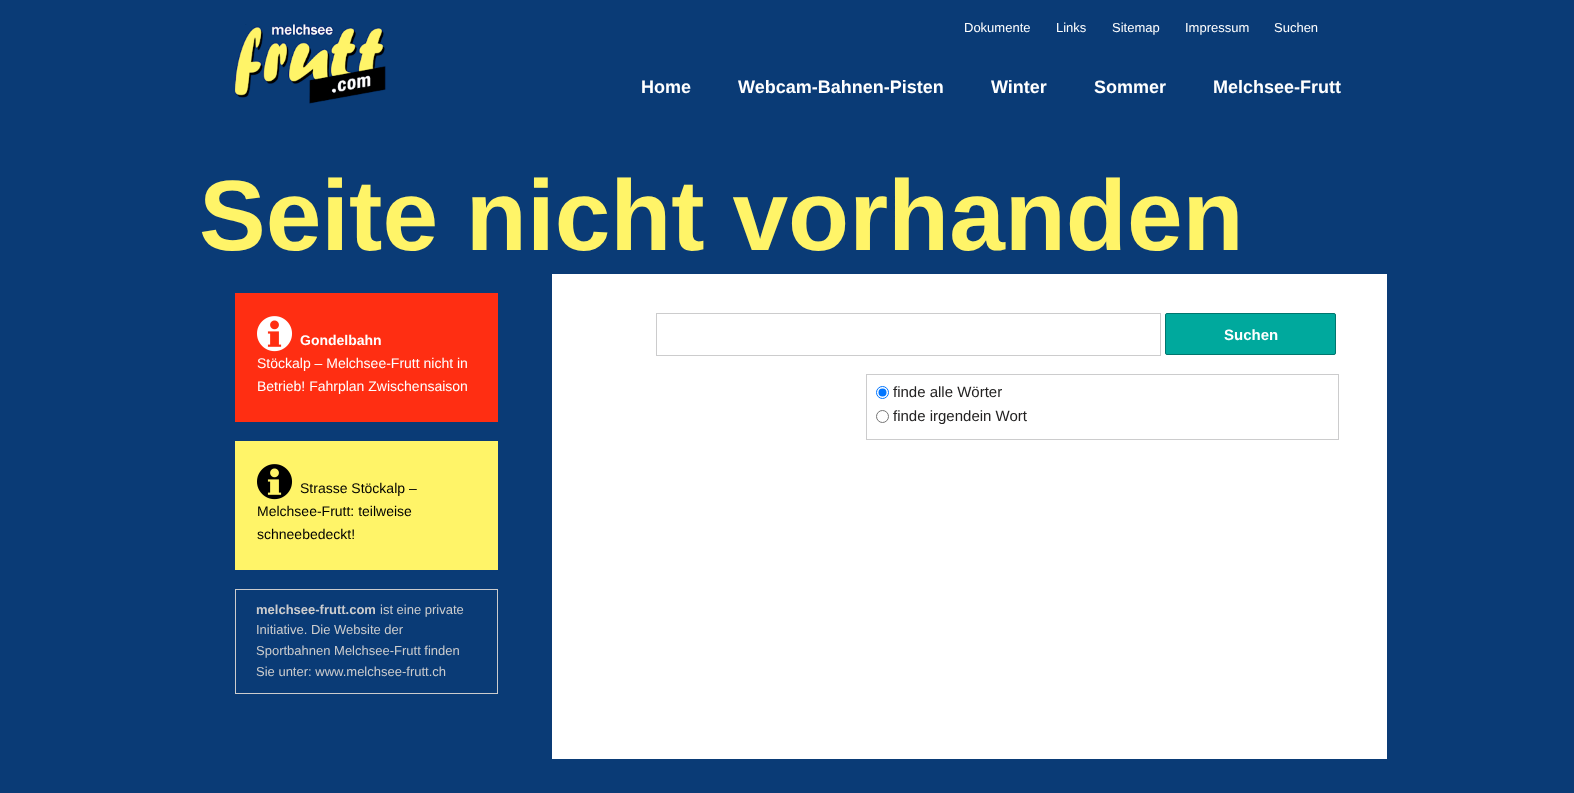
(async () => {
    const canvas = document.querySelector("canvas");
    canvas.width = 1574;
    canvas.height = 793;
    const context = canvas.getContext("2d");
    context.miterLimit = 4;
    context.fontKerning = "normal";
    function write(s, x, y, font, color) {
        context.font = font;
        context.fillStyle = color;
        context.fillText(s, x, y);
    }
    function block(x, y, w, h, color) {
        context.fillStyle = color;
        context.fillRect(x, y, w, h);
    }
    async function photo(src, x, y, w, h) {
        const img = new Image();
        img.src = src;
        await img.decode();
        context.drawImage(img, x, y, w, h);
    }

    block(0, 0, 1574, 793, "rgb(10, 59, 118)");
    await photo("media/1.png", 235, 24, 151, 80);
    write("Dokumente", 964, 32, "13px Liberation Sans", "rgb(255, 255, 255)");
    write("Links", 1056, 32, "13px Liberation Sans", "rgb(255, 255, 255)");
    write("Sitemap", 1112, 32, "13px Liberation Sans", "rgb(255, 255, 255)");
    write("Impressum", 1185, 32, "13px Liberation Sans", "rgb(255, 255, 255)");
    write("Suchen", 1274, 32, "13px Liberation Sans", "rgb(255, 255, 255)");
    write("Home", 641, 93, "bold 18px Liberation Sans", "rgb(255, 255, 255)");
    write("Webcam-Bahnen-Pisten", 738, 93, "bold 18px Liberation Sans", "rgb(255, 255, 255)");
    write("Winter", 991, 93, "bold 18px Liberation Sans", "rgb(255, 255, 255)");
    write("Sommer", 1094, 93, "bold 18px Liberation Sans", "rgb(255, 255, 255)");
    write("Melchsee-Frutt", 1213, 93, "bold 18px Liberation Sans", "rgb(255, 255, 255)");
    write("Seite nicht vorhanden", 199, 250, "bold 100px Liberation Sans", "rgb(255, 244, 104)");
    block(552, 274, 835, 485, "rgb(255, 255, 255)");
    block(235, 293, 263, 129, "rgb(255, 46, 18)");
    await photo("media/2.png", 257, 316, 36, 36);
    write("Gondelbahn", 300, 345, "bold 14px Liberation Sans", "rgb(255, 255, 255)");
    write("Stöckalp – Melchsee-Frutt nicht in", 257, 368, "14px Liberation Sans", "rgb(255, 255, 255)");
    write("Betrieb! Fahrplan Zwischensaison", 257, 391, "14px Liberation Sans", "rgb(255, 255, 255)");
    block(235, 441, 263, 129, "rgb(255, 244, 104)");
    await photo("media/3.png", 257, 464, 36, 36);
    write("Strasse Stöckalp –", 300, 493, "14px Liberation Sans", "rgb(0, 0, 0)");
    write("Melchsee-Frutt: teilweise", 257, 516, "14px Liberation Sans", "rgb(0, 0, 0)");
    write("schneebedeckt!", 257, 539, "14px Liberation Sans", "rgb(0, 0, 0)");
    context.strokeStyle = "rgb(204, 204, 205)";
    context.strokeRect(235.5, 589.5, 262, 104);
    write("melchsee-frutt.com", 256, 614, "bold 13px Liberation Sans", "rgb(204, 204, 205)");
    write("ist eine private", 380, 614, "13px Liberation Sans", "rgb(204, 204, 205)");
    write("Initiative. Die Website der", 256, 634, "13px Liberation Sans", "rgb(204, 204, 205)");
    write("Sportbahnen Melchsee-Frutt finden", 256, 655, "13px Liberation Sans", "rgb(204, 204, 205)");
    write("Sie unter: www.melchsee-frutt.ch", 256, 676, "13px Liberation Sans", "rgb(204, 204, 205)");
    context.strokeRect(656.5, 313.5, 504, 42);
    context.fillStyle = "rgb(0, 169, 157)";
    context.beginPath();
    context.roundRect(1165.5, 313.5, 170, 41, 1.5);
    context.fill();
    context.strokeStyle = "rgb(0, 118, 110)";
    context.stroke();
    write("Suchen", 1224, 340, "bold 15px Liberation Sans", "rgb(255, 255, 255)");
    context.strokeStyle = "rgb(204, 204, 205)";
    context.strokeRect(866.5, 374.5, 472, 65);
    context.beginPath();
    context.arc(882.5, 392.5, 6, 0, Math.PI * 2);
    context.strokeStyle = "rgb(0, 117, 255)";
    context.stroke();
    context.fillStyle = "rgb(0, 117, 255)";
    context.beginPath();
    context.arc(882.5, 392.5, 4, 0, Math.PI * 2);
    context.fill();
    write("finde alle Wörter", 893, 397, "15px Liberation Sans", "rgb(35, 34, 34)");
    context.beginPath();
    context.arc(882.5, 416.5, 6, 0, Math.PI * 2);
    context.strokeStyle = "rgb(118, 118, 118)";
    context.stroke();
    write("finde irgendein Wort", 893, 421, "15px Liberation Sans", "rgb(35, 34, 34)");
})();
